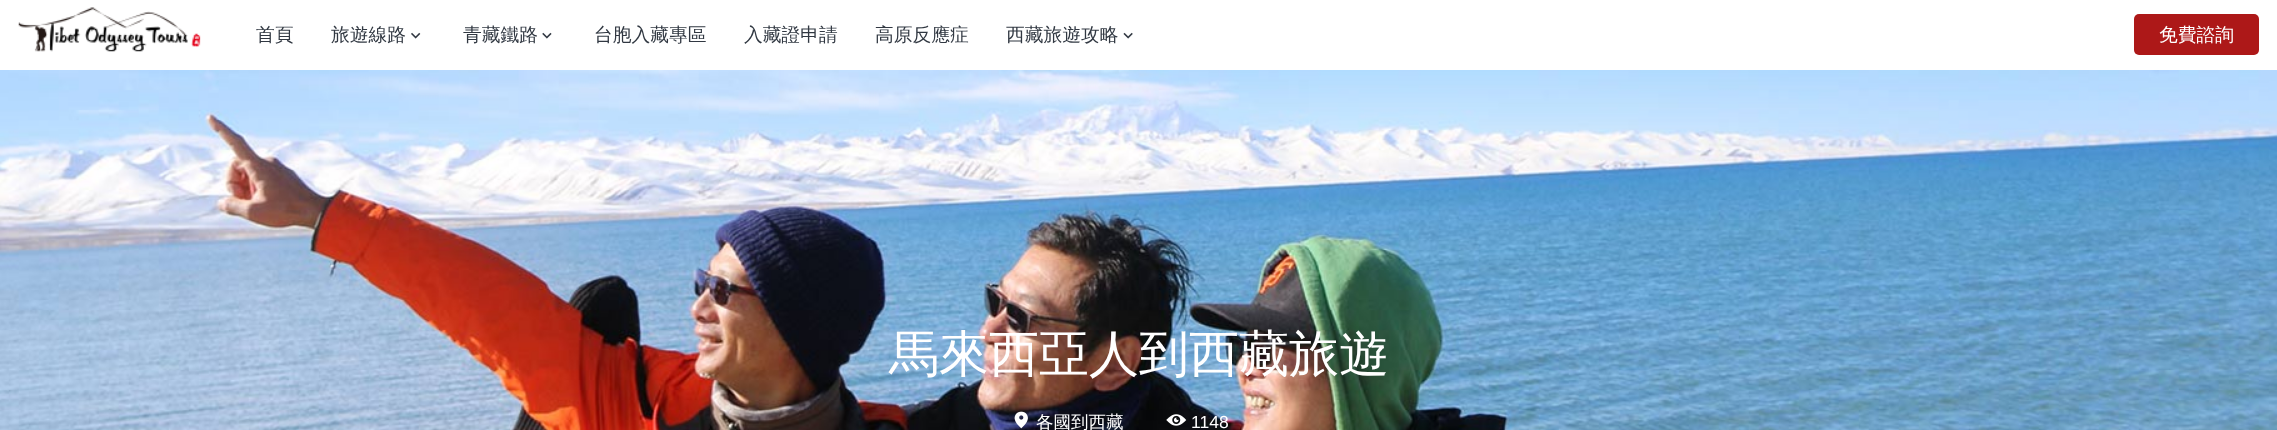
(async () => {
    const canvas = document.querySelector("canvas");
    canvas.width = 2277;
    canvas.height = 430;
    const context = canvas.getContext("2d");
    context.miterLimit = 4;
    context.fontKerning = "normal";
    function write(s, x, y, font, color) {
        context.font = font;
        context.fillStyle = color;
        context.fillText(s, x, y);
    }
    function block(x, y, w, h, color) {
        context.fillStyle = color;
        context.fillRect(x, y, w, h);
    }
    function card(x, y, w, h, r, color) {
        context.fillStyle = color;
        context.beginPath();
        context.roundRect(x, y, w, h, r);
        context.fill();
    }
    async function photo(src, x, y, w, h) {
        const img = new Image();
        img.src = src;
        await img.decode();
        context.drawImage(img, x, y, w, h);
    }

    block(0, 0, 2277, 430, "rgb(255, 255, 255)");
    await photo("media/1.png", 18, 7, 183, 45);
    write("首頁", 256, 41, "500 18.75px WenQuanYi Zen Hei", "rgb(49, 56, 66)");
    write("旅遊線路", 331, 41, "500 18.75px WenQuanYi Zen Hei", "rgb(49, 56, 66)");
    await photo("media/2.png", 411, 32, 10, 7);
    write("青藏鐵路", 463, 41, "500 18.75px WenQuanYi Zen Hei", "rgb(49, 56, 66)");
    await photo("media/3.png", 542, 32, 10, 7);
    write("台胞入藏專區", 594, 41, "500 18.75px WenQuanYi Zen Hei", "rgb(49, 56, 66)");
    write("入藏證申請", 744, 41, "500 18.75px WenQuanYi Zen Hei", "rgb(49, 56, 66)");
    write("高原反應症", 875, 41, "500 18.75px WenQuanYi Zen Hei", "rgb(49, 56, 66)");
    write("西藏旅遊攻略", 1006, 41, "500 18.75px WenQuanYi Zen Hei", "rgb(49, 56, 66)");
    await photo("media/4.png", 1123, 32, 10, 7);
    card(2134, 14, 125, 41, 5, "rgb(173, 24, 24)");
    write("免費諮詢", 2159, 41, "500 18.75px WenQuanYi Zen Hei", "rgb(255, 255, 255)");
    await photo("media/5.png", 0, 70, 2277, 360);
    write("馬來西亞人到西藏旅遊", 889, 371, "500 50px WenQuanYi Zen Hei", "rgb(255, 255, 255)");
    await photo("media/6.png", 1014, 411, 14, 18);
    write("各國到西藏", 1036, 428, "500 17.5px WenQuanYi Zen Hei", "rgb(255, 255, 255)");
    await photo("media/7.png", 1166, 414, 21, 12);
    write("1148", 1191, 428, "17.5px Liberation Sans", "rgb(255, 255, 255)");
})();
